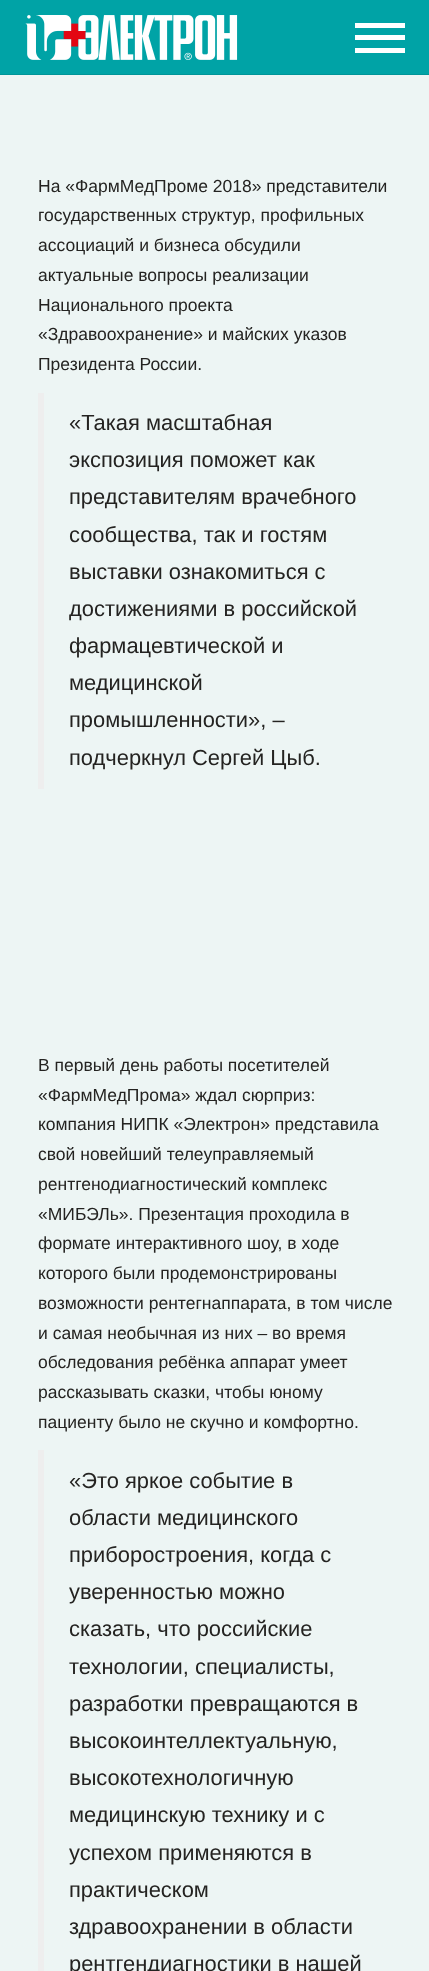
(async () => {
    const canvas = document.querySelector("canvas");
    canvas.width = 429;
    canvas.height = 1971;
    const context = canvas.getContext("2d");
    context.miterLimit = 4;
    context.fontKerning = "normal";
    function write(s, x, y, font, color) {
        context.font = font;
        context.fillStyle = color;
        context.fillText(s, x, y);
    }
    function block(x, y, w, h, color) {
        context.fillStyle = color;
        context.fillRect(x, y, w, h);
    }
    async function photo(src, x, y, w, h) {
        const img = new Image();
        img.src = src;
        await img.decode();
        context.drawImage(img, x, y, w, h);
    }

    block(0, 0, 429, 1971, "rgb(237, 245, 244)");
    block(0, 0, 429, 74, "rgb(0, 163, 166)");
    block(0, 74, 429, 1, "rgb(0, 149, 152)");
    await photo("media/1.png", 25, 15, 213, 45);
    block(355, 35, 50, 5, "rgb(255, 255, 255)");
    block(355, 23, 50, 5, "rgb(255, 255, 255)");
    block(355, 48, 50, 5, "rgb(255, 255, 255)");
    write("На «ФармМедПроме 2018» представители", 38, 192, "17.5px Liberation Sans", "rgb(36, 35, 33)");
    write("государственных структур, профильных", 38, 221, "17.5px Liberation Sans", "rgb(36, 35, 33)");
    write("ассоциаций и бизнеса обсудили", 38, 251, "17.5px Liberation Sans", "rgb(36, 35, 33)");
    write("актуальные вопросы реализации", 38, 281, "17.5px Liberation Sans", "rgb(36, 35, 33)");
    write("Национального проекта", 38, 311, "17.5px Liberation Sans", "rgb(36, 35, 33)");
    write("«Здравоохранение» и майских указов", 38, 340, "17.5px Liberation Sans", "rgb(36, 35, 33)");
    write("Президента России.", 38, 370, "17.5px Liberation Sans", "rgb(36, 35, 33)");
    block(38, 393, 6, 396, "rgb(238, 238, 238)");
    write("«Такая масштабная", 69, 430, "21.9px Liberation Sans", "rgb(36, 35, 33)");
    write("экспозиция поможет как", 69, 467, "21.9px Liberation Sans", "rgb(36, 35, 33)");
    write("представителям врачебного", 69, 504, "21.9px Liberation Sans", "rgb(36, 35, 33)");
    write("сообщества, так и гостям", 69, 542, "21.9px Liberation Sans", "rgb(36, 35, 33)");
    write("выставки ознакомиться с", 69, 579, "21.9px Liberation Sans", "rgb(36, 35, 33)");
    write("достижениями в российской", 69, 616, "21.9px Liberation Sans", "rgb(36, 35, 33)");
    write("фармацевтической и", 69, 653, "21.9px Liberation Sans", "rgb(36, 35, 33)");
    write("медицинской", 69, 690, "21.9px Liberation Sans", "rgb(36, 35, 33)");
    write("промышленности», –", 69, 727, "21.9px Liberation Sans", "rgb(36, 35, 33)");
    write("подчеркнул Сергей Цыб.", 69, 765, "21.9px Liberation Sans", "rgb(36, 35, 33)");
    write("В первый день работы посетителей", 38, 1071, "17.5px Liberation Sans", "rgb(36, 35, 33)");
    write("«ФармМедПрома» ждал сюрприз:", 38, 1101, "17.5px Liberation Sans", "rgb(36, 35, 33)");
    write("компания НИПК «Электрон» представила", 38, 1130, "17.5px Liberation Sans", "rgb(36, 35, 33)");
    write("свой новейший телеуправляемый", 38, 1160, "17.5px Liberation Sans", "rgb(36, 35, 33)");
    write("рентгенодиагностический комплекс", 38, 1190, "17.5px Liberation Sans", "rgb(36, 35, 33)");
    write("«МИБЭЛь». Презентация проходила в", 38, 1220, "17.5px Liberation Sans", "rgb(36, 35, 33)");
    write("формате интерактивного шоу, в ходе", 38, 1249, "17.5px Liberation Sans", "rgb(36, 35, 33)");
    write("которого были продемонстрированы", 38, 1279, "17.5px Liberation Sans", "rgb(36, 35, 33)");
    write("возможности рентегнаппарата, в том числе", 38, 1309, "17.5px Liberation Sans", "rgb(36, 35, 33)");
    write("и самая необычная из них – во время", 38, 1339, "17.5px Liberation Sans", "rgb(36, 35, 33)");
    write("обследования ребёнка аппарат умеет", 38, 1368, "17.5px Liberation Sans", "rgb(36, 35, 33)");
    write("рассказывать сказки, чтобы юному", 38, 1398, "17.5px Liberation Sans", "rgb(36, 35, 33)");
    write("пациенту было не скучно и комфортно.", 38, 1428, "17.5px Liberation Sans", "rgb(36, 35, 33)");
    block(38, 1450, 6, 521, "rgb(238, 238, 238)");
    write("«Это яркое событие в", 69, 1488, "21.9px Liberation Sans", "rgb(36, 35, 33)");
    write("области медицинского", 69, 1525, "21.9px Liberation Sans", "rgb(36, 35, 33)");
    write("приборостроения, когда с", 69, 1562, "21.9px Liberation Sans", "rgb(36, 35, 33)");
    write("уверенностью можно", 69, 1599, "21.9px Liberation Sans", "rgb(36, 35, 33)");
    write("сказать, что российские", 69, 1636, "21.9px Liberation Sans", "rgb(36, 35, 33)");
    write("технологии, специалисты,", 69, 1674, "21.9px Liberation Sans", "rgb(36, 35, 33)");
    write("разработки превращаются в", 69, 1711, "21.9px Liberation Sans", "rgb(36, 35, 33)");
    write("высокоинтеллектуальную,", 69, 1748, "21.9px Liberation Sans", "rgb(36, 35, 33)");
    write("высокотехнологичную", 69, 1785, "21.9px Liberation Sans", "rgb(36, 35, 33)");
    write("медицинскую технику и с", 69, 1822, "21.9px Liberation Sans", "rgb(36, 35, 33)");
    write("успехом применяются в", 69, 1860, "21.9px Liberation Sans", "rgb(36, 35, 33)");
    write("практическом", 69, 1897, "21.9px Liberation Sans", "rgb(36, 35, 33)");
    write("здравоохранении в области", 69, 1934, "21.9px Liberation Sans", "rgb(36, 35, 33)");
    write("рентгендиагностики в нашей", 69, 1971, "21.9px Liberation Sans", "rgb(36, 35, 33)");
})();
